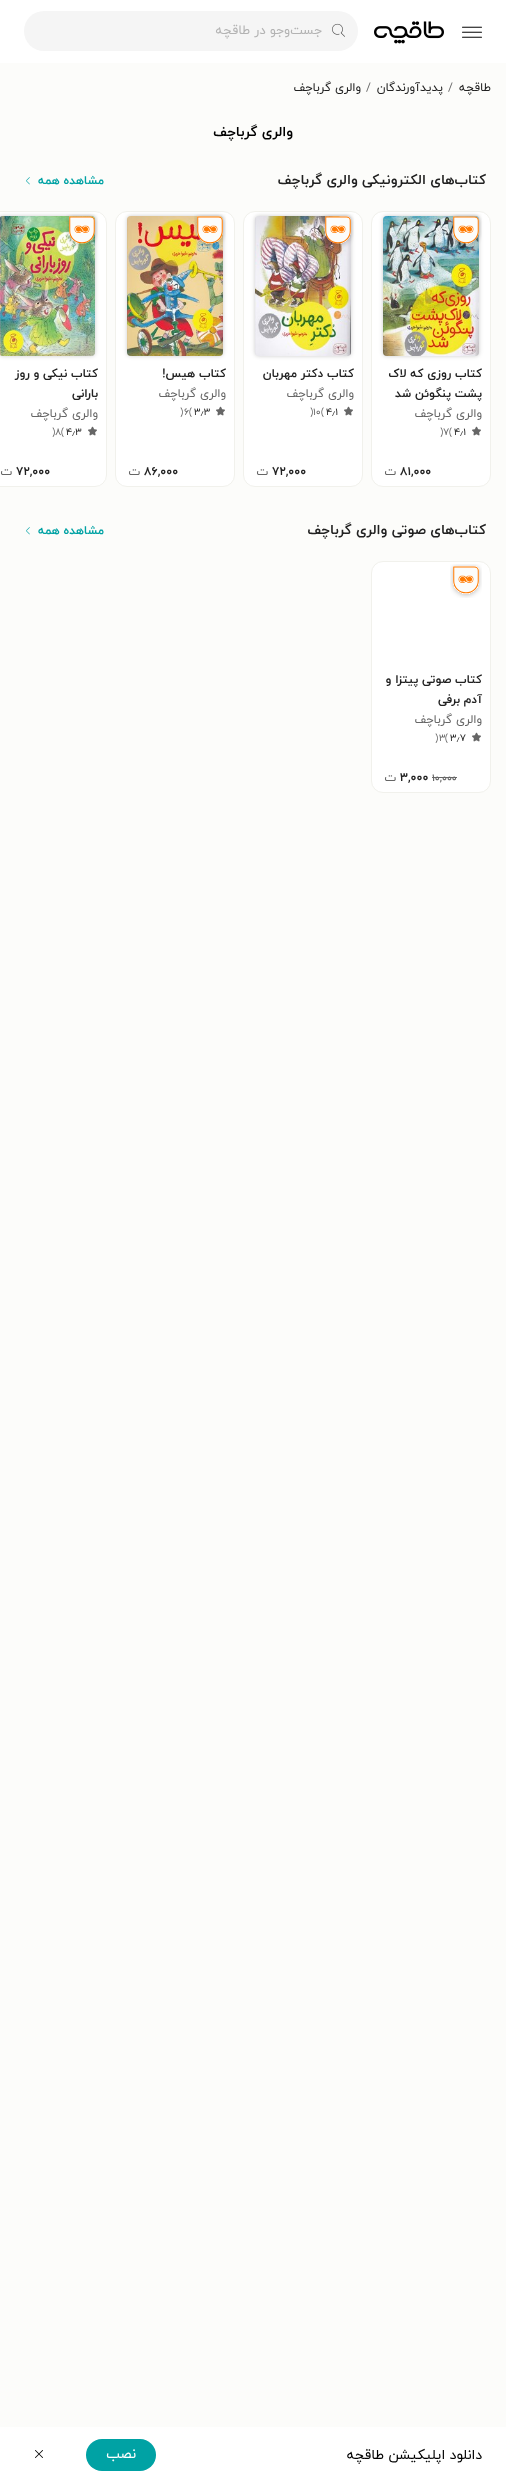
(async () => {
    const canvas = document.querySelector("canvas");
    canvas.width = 506;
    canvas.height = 2483;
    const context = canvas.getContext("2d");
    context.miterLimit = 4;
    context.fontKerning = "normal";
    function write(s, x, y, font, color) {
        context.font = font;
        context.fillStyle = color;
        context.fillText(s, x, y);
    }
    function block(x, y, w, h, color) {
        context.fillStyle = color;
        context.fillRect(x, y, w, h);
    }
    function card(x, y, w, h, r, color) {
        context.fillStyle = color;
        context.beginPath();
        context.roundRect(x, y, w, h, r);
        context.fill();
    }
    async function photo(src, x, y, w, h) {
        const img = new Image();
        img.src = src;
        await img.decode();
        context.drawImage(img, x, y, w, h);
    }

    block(0, 0, 506, 2483, "rgb(252, 252, 250)");
    block(0, 0, 506, 63, "rgb(255, 255, 255)");
    await photo("media/1.png", 462, 26, 20, 12);
    await photo("media/2.png", 374, 21, 70, 23);
    card(24, 11, 334, 40, 20, "rgb(245, 245, 245)");
    await photo("media/3.png", 332, 23, 13, 14);
    context.direction = "rtl";
    write("جست‌وجو در طاقچه", 322, 34, "13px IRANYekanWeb", "rgb(179, 179, 179)");
    write("طاقچه", 491, 91, "12px IRANYekanWeb", "rgb(33, 33, 33)");
    context.direction = "ltr";
    write("/", 448, 91, "12px IRANYekanWeb", "rgb(102, 102, 102)");
    context.direction = "rtl";
    write("پدیدآورندگان", 443, 91, "12px IRANYekanWeb", "rgb(33, 33, 33)");
    context.direction = "ltr";
    write("/", 366, 91, "12px IRANYekanWeb", "rgb(102, 102, 102)");
    context.direction = "rtl";
    write("والری گرباچف", 361, 91, "12px IRANYekanWeb", "rgb(33, 33, 33)");
    write("والری گرباچف", 293, 136, "bold 14px IRANYekanWeb", "rgb(0, 0, 0)");
    write("کتاب‌های الکترونیکی والری گرباچف", 486, 184, "bold 14px IRANYekanWeb", "rgb(33, 33, 33)");
    write("مشاهده همه", 104, 184, "bold 12px IRANYekanWeb", "rgb(0, 162, 164)");
    await photo("media/4.png", 26, 177, 4, 8);
    context.fillStyle = "rgb(255, 255, 255)";
    context.beginPath();
    context.roundRect(371.5, 211.5, 119, 275, 11.5);
    context.fill();
    context.strokeStyle = "rgb(241, 241, 236)";
    context.stroke();
    context.fillStyle = "rgba(0, 0, 0, 0.2)";
    context.filter = "blur(2px)";
    context.beginPath();
    context.roundRect(383, 216, 96, 140, 4);
    context.fill();
    context.filter = "none";
    await photo("media/6.png", 383, 216, 96, 140);
    await photo("media/5.png", 450, 214, 32, 34);
    write("کتاب روزی که لاک", 482, 377, "bold 12px IRANYekanWeb", "rgb(33, 33, 33)");
    write("پشت پنگوئن شد", 482, 397, "bold 12px IRANYekanWeb", "rgb(33, 33, 33)");
    write("والری گرباچف", 482, 417, "12px IRANYekanWeb", "rgb(102, 102, 102)");
    await photo("media/7.png", 472, 426, 9, 10);
    context.direction = "ltr";
    write("۴٫۱", 454, 435, "10px IRANYekanWeb", "rgb(33, 33, 33)");
    write("(", 449, 435, "10px IRANYekanWeb", "rgb(102, 102, 102)");
    write("۷", 443, 435, "10px IRANYekanWeb", "rgb(102, 102, 102)");
    write(")", 440, 435, "10px IRANYekanWeb", "rgb(102, 102, 102)");
    write("۸۱,۰۰۰", 400, 475, "bold 12px IRANYekanWeb", "rgb(33, 33, 33)");
    context.direction = "rtl";
    write("ت", 396, 475, "12px IRANYekanWeb", "rgb(102, 102, 102)");
    context.fillStyle = "rgb(255, 255, 255)";
    context.beginPath();
    context.roundRect(243.5, 211.5, 119, 275, 11.5);
    context.fill();
    context.stroke();
    context.fillStyle = "rgba(0, 0, 0, 0.2)";
    context.filter = "blur(2px)";
    context.beginPath();
    context.roundRect(255, 216, 96, 140, 4);
    context.fill();
    context.filter = "none";
    await photo("media/9.png", 255, 216, 96, 140);
    await photo("media/8.png", 322, 214, 32, 34);
    write("کتاب دکتر مهربان", 354, 377, "bold 12px IRANYekanWeb", "rgb(33, 33, 33)");
    write("والری گرباچف", 354, 397, "12px IRANYekanWeb", "rgb(102, 102, 102)");
    await photo("media/7.png", 344, 406, 9, 10);
    context.direction = "ltr";
    write("۴٫۱", 326, 415, "10px IRANYekanWeb", "rgb(33, 33, 33)");
    write("(", 321, 415, "10px IRANYekanWeb", "rgb(102, 102, 102)");
    write("۱۰", 313, 415, "10px IRANYekanWeb", "rgb(102, 102, 102)");
    write(")", 310, 415, "10px IRANYekanWeb", "rgb(102, 102, 102)");
    write("۷۲,۰۰۰", 272, 475, "bold 12px IRANYekanWeb", "rgb(33, 33, 33)");
    context.direction = "rtl";
    write("ت", 268, 475, "12px IRANYekanWeb", "rgb(102, 102, 102)");
    context.fillStyle = "rgb(255, 255, 255)";
    context.beginPath();
    context.roundRect(115.5, 211.5, 119, 275, 11.5);
    context.fill();
    context.stroke();
    context.fillStyle = "rgba(0, 0, 0, 0.2)";
    context.filter = "blur(2px)";
    context.beginPath();
    context.roundRect(127, 216, 96, 140, 4);
    context.fill();
    context.filter = "none";
    await photo("media/11.png", 127, 216, 96, 140);
    await photo("media/10.png", 194, 214, 32, 34);
    write("کتاب هیس!", 226, 377, "bold 12px IRANYekanWeb", "rgb(33, 33, 33)");
    write("والری گرباچف", 226, 397, "12px IRANYekanWeb", "rgb(102, 102, 102)");
    await photo("media/7.png", 216, 406, 9, 10);
    context.direction = "ltr";
    write("۳٫۳", 194, 415, "10px IRANYekanWeb", "rgb(33, 33, 33)");
    write("(", 189, 415, "10px IRANYekanWeb", "rgb(102, 102, 102)");
    write("۶", 184, 415, "10px IRANYekanWeb", "rgb(102, 102, 102)");
    write(")", 180, 415, "10px IRANYekanWeb", "rgb(102, 102, 102)");
    write("۸۶,۰۰۰", 144, 475, "bold 12px IRANYekanWeb", "rgb(33, 33, 33)");
    context.direction = "rtl";
    write("ت", 140, 475, "12px IRANYekanWeb", "rgb(102, 102, 102)");
    context.fillStyle = "rgb(255, 255, 255)";
    context.beginPath();
    context.roundRect(0, 211, 107, 276, [0, 12, 12, 0]);
    context.fill();
    context.beginPath();
    context.roundRect(-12.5, 211.5, 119, 275, 11.5);
    context.stroke();
    context.fillStyle = "rgba(0, 0, 0, 0.2)";
    context.filter = "blur(2px)";
    context.beginPath();
    context.roundRect(-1, 216, 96, 140, 4);
    context.fill();
    context.filter = "none";
    await photo("media/13.png", 0, 216, 95, 140);
    await photo("media/12.png", 66, 214, 32, 34);
    write("کتاب نیکی و روز", 98, 377, "bold 12px IRANYekanWeb", "rgb(33, 33, 33)");
    write("بارانی", 98, 397, "bold 12px IRANYekanWeb", "rgb(33, 33, 33)");
    write("والری گرباچف", 98, 417, "12px IRANYekanWeb", "rgb(102, 102, 102)");
    await photo("media/7.png", 88, 426, 9, 10);
    context.direction = "ltr";
    write("۴٫۳", 66, 435, "10px IRANYekanWeb", "rgb(33, 33, 33)");
    write("(", 61, 435, "10px IRANYekanWeb", "rgb(102, 102, 102)");
    write("۸", 55, 435, "10px IRANYekanWeb", "rgb(102, 102, 102)");
    write(")", 52, 435, "10px IRANYekanWeb", "rgb(102, 102, 102)");
    write("۷۲,۰۰۰", 16, 475, "bold 12px IRANYekanWeb", "rgb(33, 33, 33)");
    context.direction = "rtl";
    write("ت", 12, 475, "12px IRANYekanWeb", "rgb(102, 102, 102)");
    write("کتاب‌های صوتی والری گرباچف", 486, 534, "bold 14px IRANYekanWeb", "rgb(33, 33, 33)");
    write("مشاهده همه", 104, 534, "bold 12px IRANYekanWeb", "rgb(0, 162, 164)");
    await photo("media/4.png", 26, 527, 4, 8);
    context.fillStyle = "rgb(255, 255, 255)";
    context.beginPath();
    context.roundRect(371.5, 561.5, 119, 231, 11.5);
    context.fill();
    context.stroke();
    await photo("media/14.png", 450, 564, 32, 34);
    write("کتاب صوتی پیتزا و", 482, 683, "bold 12px IRANYekanWeb", "rgb(33, 33, 33)");
    write("آدم برفی", 482, 703, "bold 12px IRANYekanWeb", "rgb(33, 33, 33)");
    write("والری گرباچف", 482, 723, "12px IRANYekanWeb", "rgb(102, 102, 102)");
    await photo("media/7.png", 472, 732, 9, 10);
    context.direction = "ltr";
    write("۳٫۷", 450, 741, "10px IRANYekanWeb", "rgb(33, 33, 33)");
    write("(", 445, 741, "10px IRANYekanWeb", "rgb(102, 102, 102)");
    write("۳", 439, 741, "10px IRANYekanWeb", "rgb(102, 102, 102)");
    write(")", 435, 741, "10px IRANYekanWeb", "rgb(102, 102, 102)");
    write("۱۰,۰۰۰", 432, 781, "bold 10px IRANYekanWeb", "rgb(102, 102, 102)");
    block(432, 777, 25, 1, "rgb(102, 102, 102)");
    write("۳,۰۰۰", 400, 781, "bold 12px IRANYekanWeb", "rgb(33, 33, 33)");
    context.direction = "rtl";
    write("ت", 396, 781, "12px IRANYekanWeb", "rgb(102, 102, 102)");
    block(0, 2427, 506, 56, "rgb(255, 255, 255)");
    write("دانلود اپلیکیشن طاقچه", 482, 2459, "14px IRANYekanWeb", "rgb(0, 0, 0)");
    card(86, 2439, 70, 32, 16, "rgb(0, 162, 164)");
    write("نصب", 136, 2458, "14px IRANYekanWeb", "rgb(255, 255, 255)");
    await photo("media/15.png", 35, 2450, 8, 8);
})();
